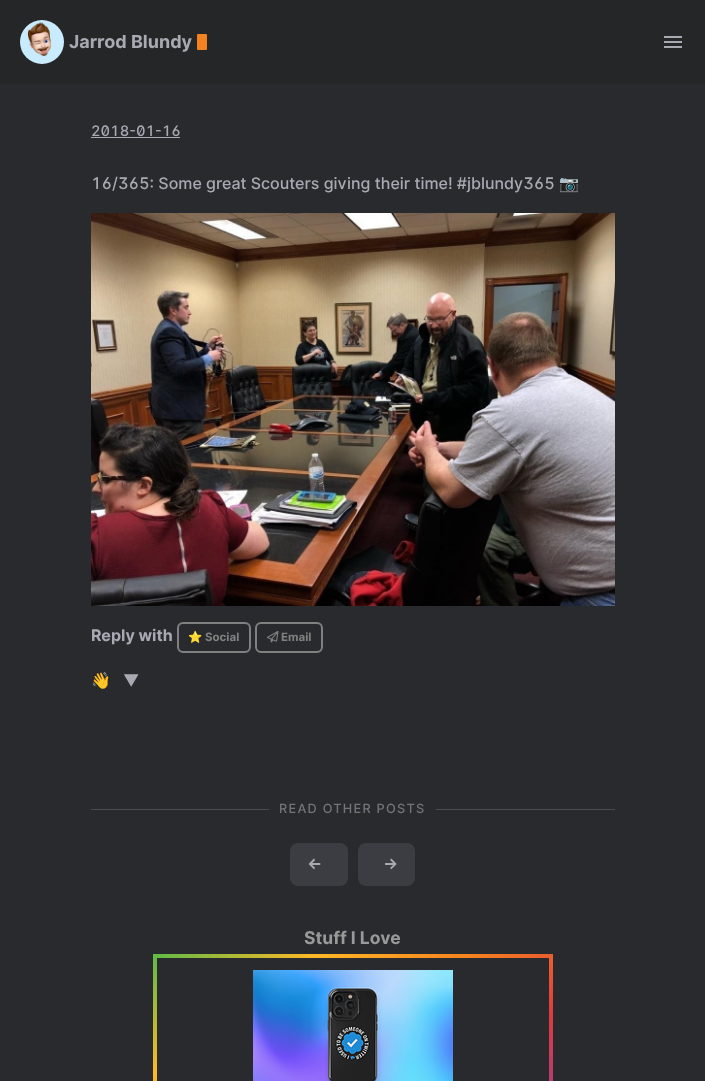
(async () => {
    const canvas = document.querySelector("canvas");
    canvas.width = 705;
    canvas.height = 1081;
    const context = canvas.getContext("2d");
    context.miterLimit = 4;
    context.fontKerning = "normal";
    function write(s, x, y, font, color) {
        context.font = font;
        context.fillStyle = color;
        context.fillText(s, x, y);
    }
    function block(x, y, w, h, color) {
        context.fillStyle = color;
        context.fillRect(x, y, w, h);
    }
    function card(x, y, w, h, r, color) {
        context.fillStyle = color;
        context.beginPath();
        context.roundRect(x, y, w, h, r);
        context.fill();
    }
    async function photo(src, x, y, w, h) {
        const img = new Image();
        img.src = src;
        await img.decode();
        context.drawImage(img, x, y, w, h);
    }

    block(0, 0, 705, 1081, "rgb(41, 42, 45)");
    block(0, 0, 705, 84, "rgb(37, 38, 39)");
    await photo("media/1.png", 20, 20, 44, 44);
    write("Jarrod Blundy", 69, 48, "bold 18px Inter", "rgb(169, 169, 179)");
    card(197, 34, 10, 16, 1, "rgb(245, 130, 31)");
    await photo("media/2.png", 664, 36, 18, 12);
    write("2018-01-16", 91, 136, "500 14.5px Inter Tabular", "rgb(169, 169, 179)");
    block(91, 137, 89, 1, "rgb(169, 169, 179)");
    write("16/365: Some great Scouters giving their time! #jblundy365", 91, 189, "500 16px Inter Tabular", "rgb(169, 169, 179)");
    write("📷", 559, 189, "bold 16px Noto Color Emoji", "rgb(169, 169, 179)");
    await photo("media/3.png", 91, 213, 524, 393);
    write("Reply with", 91, 641, "bold 16px Inter", "rgb(169, 169, 179)");
    context.beginPath();
    context.roundRect(178, 623, 72, 29, 5);
    context.strokeStyle = "rgb(128, 128, 128)";
    context.lineWidth = 2;
    context.stroke();
    write("⭐", 188, 641, "bold 11.5px Noto Color Emoji", "rgb(128, 128, 128)");
    write("Social", 205, 641, "bold 11.5px Inter", "rgb(128, 128, 128)");
    context.beginPath();
    context.roundRect(256, 623, 66, 29, 5);
    context.stroke();
    await photo("media/4.png", 267, 631, 12, 12);
    write("Email", 281, 641, "bold 11.5px Inter", "rgb(128, 128, 128)");
    write("👋", 91, 686, "bold 16px Noto Color Emoji", "rgb(169, 169, 179)");
    write("▼", 123, 686, "500 16px Inter", "rgb(169, 169, 179)");
    block(91, 809, 524, 1, "rgb(74, 75, 80)");
    block(269, 809, 167, 1, "rgb(41, 42, 45)");
    context.letterSpacing = "1.25px";
    write("READ OTHER POSTS", 279, 813, "500 12.75px Inter", "rgb(115, 116, 123)");
    card(290, 843, 58, 43, 8, "rgb(59, 61, 66)");
    context.letterSpacing = "0px";
    write("←", 307, 869, "bold 16px Inter", "rgb(169, 169, 179)");
    card(358, 843, 57, 43, 8, "rgb(59, 61, 66)");
    write("→", 383, 869, "bold 16px Inter", "rgb(169, 169, 179)");
    write("Stuff I Love", 304, 944, "bold 17.5px Inter", "rgb(153, 153, 153)");
    await photo("media/5.png", 153, 954, 400, 127);
    await photo("media/6.png", 253, 970, 200, 111);
})();
